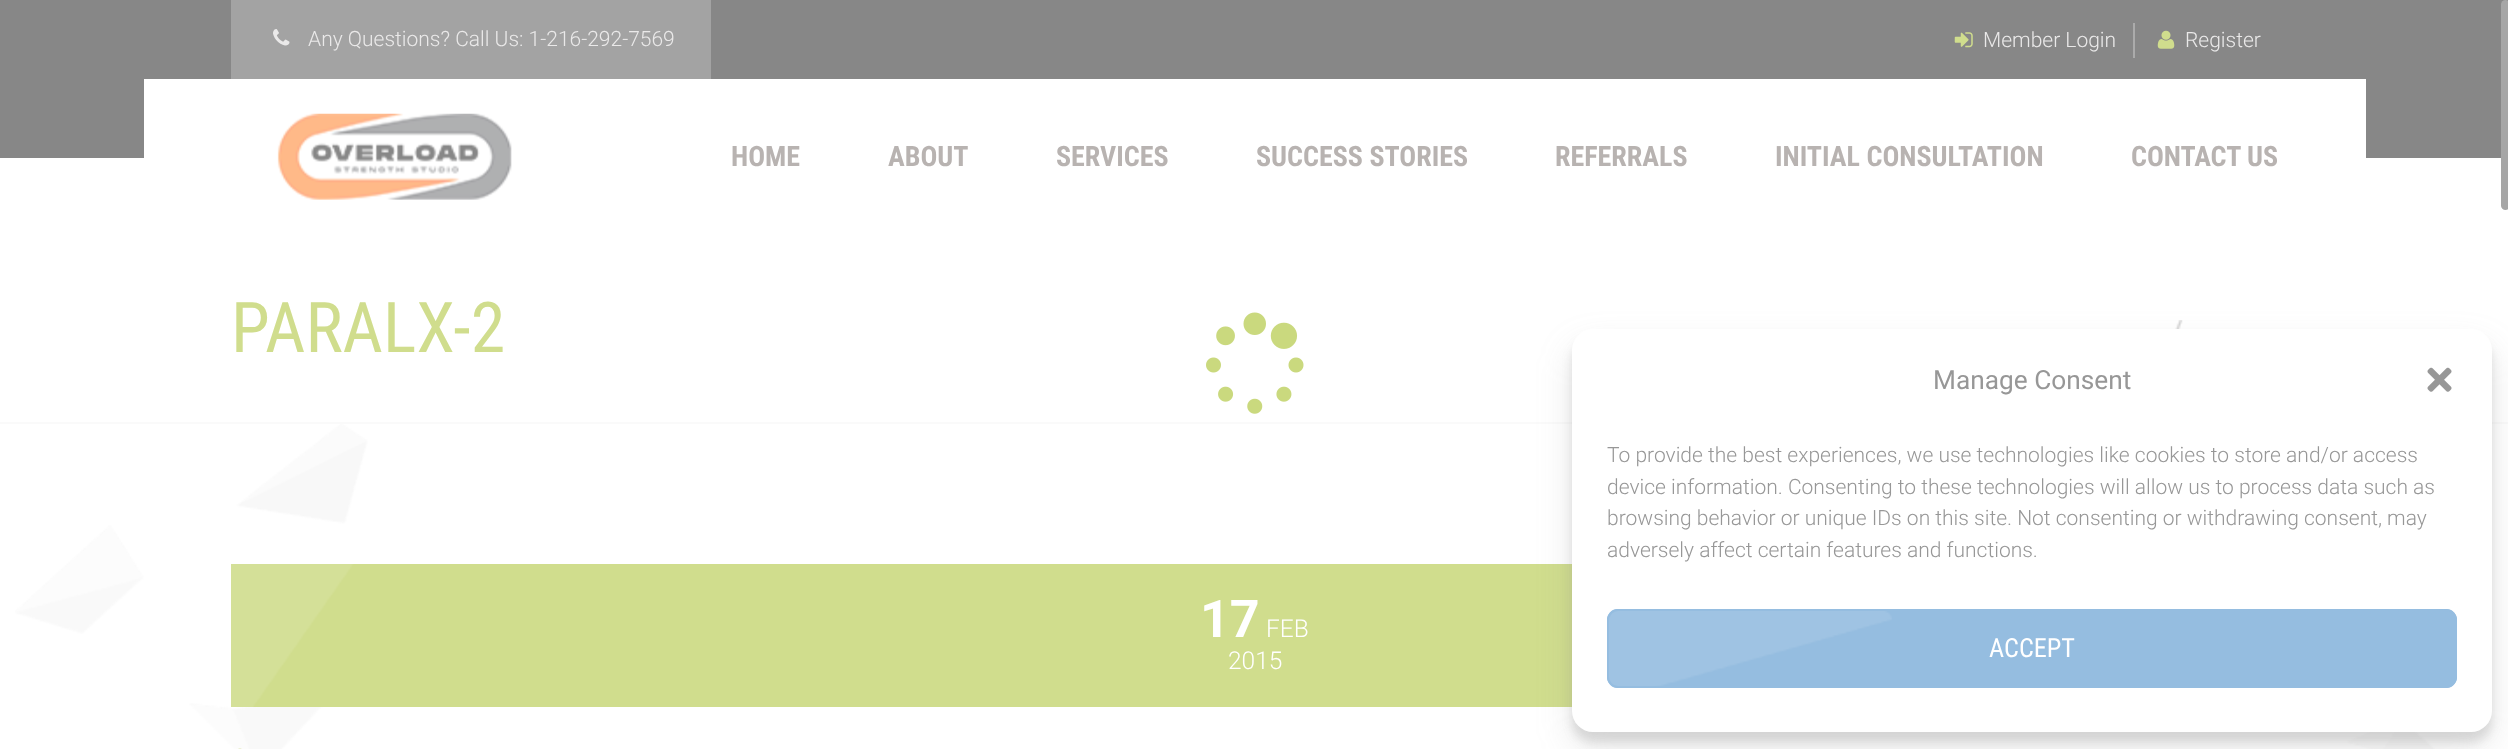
(async () => {
    const canvas = document.querySelector("canvas");
    canvas.width = 2508;
    canvas.height = 749;
    const context = canvas.getContext("2d");
    context.miterLimit = 4;
    context.fontKerning = "normal";
    function write(s, x, y, font, color) {
        context.font = font;
        context.fillStyle = color;
        context.fillText(s, x, y);
    }
    function block(x, y, w, h, color) {
        context.fillStyle = color;
        context.fillRect(x, y, w, h);
    }
    function card(x, y, w, h, r, color) {
        context.fillStyle = color;
        context.beginPath();
        context.roundRect(x, y, w, h, r);
        context.fill();
    }
    async function photo(src, x, y, w, h) {
        const img = new Image();
        img.src = src;
        await img.decode();
        context.drawImage(img, x, y, w, h);
    }

    block(0, 0, 2508, 749, "rgb(255, 255, 255)");
    block(0, 0, 2508, 158, "rgb(135, 135, 135)");
    block(231, 0, 480, 79, "rgb(163, 163, 163)");
    await photo("media/1.png", 273, 29, 17, 17);
    write("Any Questions? Call Us: 1-216-292-7569", 308, 46, "300 21px Roboto", "rgb(234, 233, 233)");
    block(2133, 23, 2, 35, "rgb(171, 171, 171)");
    await photo("media/2.png", 1954, 32, 19, 16);
    write("Member Login", 1983, 47, "300 21px Roboto", "rgb(234, 233, 233)");
    await photo("media/3.png", 2157, 30, 18, 19);
    write("Register", 2185, 47, "300 21px Roboto", "rgb(234, 233, 233)");
    block(144, 79, 2222, 79, "rgb(255, 255, 255)");
    await photo("media/4.png", 277, 113, 235, 87);
    write("HOME", 731, 166, "bold 28px Roboto Condensed", "rgb(184, 179, 177)");
    write("ABOUT", 888, 166, "bold 28px Roboto Condensed", "rgb(184, 179, 177)");
    write("SERVICES", 1056, 166, "bold 28px Roboto Condensed", "rgb(184, 179, 177)");
    write("SUCCESS STORIES", 1256, 166, "bold 28px Roboto Condensed", "rgb(184, 179, 177)");
    write("REFERRALS", 1555, 166, "bold 28px Roboto Condensed", "rgb(184, 179, 177)");
    write("INITIAL CONSULTATION", 1775, 166, "bold 28px Roboto Condensed", "rgb(184, 179, 177)");
    write("CONTACT US", 2131, 166, "bold 28px Roboto Condensed", "rgb(184, 179, 177)");
    block(0, 422, 2508, 2, "rgb(250, 250, 250)");
    write("PARALX-2", 231, 352, "70px Roboto Condensed", "rgb(208, 221, 141)");
    await photo("media/5.png", 2175, 320, 8, 9);
    await photo("media/6.png", 15, 424, 353, 325);
    block(231, 564, 1341, 143, "rgb(208, 221, 141)");
    await photo("media/7.png", 231, 564, 123, 143);
    write("17", 1200, 637, "bold 52px Roboto", "rgb(255, 255, 255)");
    write("FEB", 1266, 637, "300 24.5px Roboto", "rgb(255, 255, 255)");
    write("2015", 1228, 669, "300 24.5px Roboto", "rgb(255, 255, 255)");
    await photo("media/8.png", 238, 748, 4, 1);
    await photo("media/9.png", 2346, 732, 91, 17);
    card(2501, 0, 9, 210, 4.5, "rgb(166, 166, 166)");
    await photo("media/10.png", 1206, 312, 98, 102);
    context.fillStyle = "rgba(135, 135, 135, 0.23)";
    context.filter = "blur(5px)";
    context.beginPath();
    context.roundRect(1572, 340, 920, 402, 21);
    context.fill();
    context.filter = "none";
    context.fillStyle = "rgba(135, 135, 135, 0.19)";
    context.filter = "blur(17.5px)";
    context.beginPath();
    context.roundRect(1572, 347, 920, 402, 21);
    context.fill();
    context.filter = "none";
    card(1572, 329, 920, 403, 21, "rgb(255, 255, 255)");
    write("Manage Consent", 1933, 389, "26.25px Roboto", "rgb(151, 151, 151)");
    await photo("media/11.png", 2427, 367, 25, 25);
    write("To provide the best experiences, we use technologies like cookies to store and/or access", 1607, 462, "300 21px Roboto", "rgb(151, 151, 151)");
    write("device information. Consenting to these technologies will allow us to process data such as", 1607, 494, "300 21px Roboto", "rgb(151, 151, 151)");
    write("browsing behavior or unique IDs on this site. Not consenting or withdrawing consent, may", 1607, 525, "300 21px Roboto", "rgb(151, 151, 151)");
    write("adversely affect certain features and functions.", 1607, 557, "300 21px Roboto", "rgb(151, 151, 151)");
    card(1607, 609, 850, 79, 11, "rgb(149, 189, 224)");
    await photo("media/12.png", 1608, 611, 284, 77);
    context.beginPath();
    context.roundRect(1608, 610, 848, 77, 10);
    context.strokeStyle = "rgb(149, 189, 224)";
    context.lineWidth = 2;
    context.stroke();
    write("ACCEPT", 1989, 657, "26.25px Roboto Condensed", "rgb(255, 255, 255)");
})();
